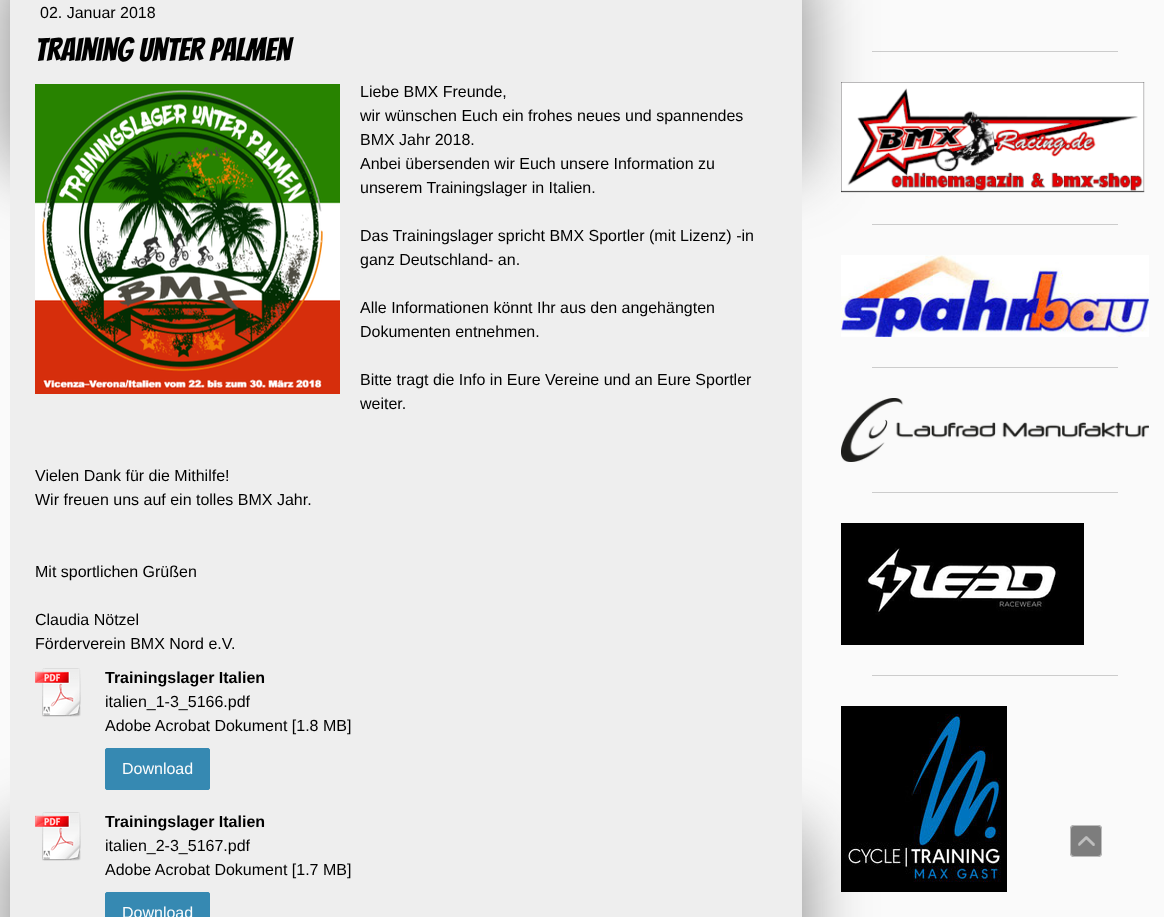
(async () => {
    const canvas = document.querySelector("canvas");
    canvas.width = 1164;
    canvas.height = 917;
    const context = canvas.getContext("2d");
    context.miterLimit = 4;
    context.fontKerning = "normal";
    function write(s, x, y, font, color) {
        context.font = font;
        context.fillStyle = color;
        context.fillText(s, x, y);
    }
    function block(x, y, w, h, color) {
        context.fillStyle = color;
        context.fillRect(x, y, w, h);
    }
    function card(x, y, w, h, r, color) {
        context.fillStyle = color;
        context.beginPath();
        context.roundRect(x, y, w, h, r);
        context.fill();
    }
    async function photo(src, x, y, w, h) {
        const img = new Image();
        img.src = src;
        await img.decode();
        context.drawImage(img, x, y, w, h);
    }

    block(0, 0, 1164, 917, "rgb(250, 250, 250)");
    block(872, 51, 246, 1, "rgb(204, 204, 204)");
    block(872, 224, 246, 1, "rgb(204, 204, 204)");
    context.fillStyle = "rgba(51, 51, 51, 0.6)";
    context.filter = "blur(34px)";
    context.beginPath();
    context.rect(10, -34, 792, 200);
    context.fill();
    context.filter = "none";
    context.filter = "blur(34px)";
    context.beginPath();
    context.rect(10, 832, 792, 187);
    context.fill();
    context.filter = "none";
    block(10, 0, 792, 917, "rgb(238, 238, 238)");
    write("02. Januar 2018", 40, 18, "16px Liberation Sans", "rgb(0, 0, 0)");
    write("Training unter Palmen", 35, 61, "32px Bangers", "rgb(0, 0, 0)");
    await photo("media/1.png", 35, 84, 305, 310);
    write("Liebe BMX Freunde,", 360, 97, "16px Liberation Sans", "rgb(0, 0, 0)");
    write("wir wünschen Euch ein frohes neues und spannendes", 360, 121, "16px Liberation Sans", "rgb(0, 0, 0)");
    write("BMX Jahr 2018.", 360, 145, "16px Liberation Sans", "rgb(0, 0, 0)");
    write("Anbei übersenden wir Euch unsere Information zu", 360, 169, "16px Liberation Sans", "rgb(0, 0, 0)");
    write("unserem Trainingslager in Italien.", 360, 193, "16px Liberation Sans", "rgb(0, 0, 0)");
    write("Das Trainingslager spricht BMX Sportler (mit Lizenz) -in", 360, 241, "16px Liberation Sans", "rgb(0, 0, 0)");
    write("ganz Deutschland- an.", 360, 265, "16px Liberation Sans", "rgb(0, 0, 0)");
    write("Alle Informationen könnt Ihr aus den angehängten", 360, 313, "16px Liberation Sans", "rgb(0, 0, 0)");
    write("Dokumenten entnehmen.", 360, 337, "16px Liberation Sans", "rgb(0, 0, 0)");
    write("Bitte tragt die Info in Eure Vereine und an Eure Sportler", 360, 385, "16px Liberation Sans", "rgb(0, 0, 0)");
    write("weiter.", 360, 409, "16px Liberation Sans", "rgb(0, 0, 0)");
    write("Vielen Dank für die Mithilfe!", 35, 481, "16px Liberation Sans", "rgb(0, 0, 0)");
    write("Wir freuen uns auf ein tolles BMX Jahr.", 35, 505, "16px Liberation Sans", "rgb(0, 0, 0)");
    write("Mit sportlichen Grüßen", 35, 577, "16px Liberation Sans", "rgb(0, 0, 0)");
    write("Claudia Nötzel", 35, 625, "16px Liberation Sans", "rgb(0, 0, 0)");
    write("Förderverein BMX Nord e.V.", 35, 649, "16px Liberation Sans", "rgb(0, 0, 0)");
    await photo("media/2.png", 35, 668, 46, 49);
    write("Trainingslager Italien", 105, 683, "bold 16px Liberation Sans", "rgb(0, 0, 0)");
    write("italien_1-3_5166.pdf", 105, 707, "16px Liberation Sans", "rgb(0, 0, 0)");
    write("Adobe Acrobat Dokument [1.8 MB]", 105, 731, "16px Liberation Sans", "rgb(0, 0, 0)");
    context.fillStyle = "rgb(54, 137, 178)";
    context.beginPath();
    context.roundRect(105.5, 748.5, 104, 41, 1.5);
    context.fill();
    context.strokeStyle = "rgb(54, 137, 178)";
    context.stroke();
    write("Download", 122, 774, "16px Liberation Sans", "rgb(253, 253, 253)");
    await photo("media/2.png", 35, 812, 46, 49);
    write("Trainingslager Italien", 105, 827, "bold 16px Liberation Sans", "rgb(0, 0, 0)");
    write("italien_2-3_5167.pdf", 105, 851, "16px Liberation Sans", "rgb(0, 0, 0)");
    write("Adobe Acrobat Dokument [1.7 MB]", 105, 875, "16px Liberation Sans", "rgb(0, 0, 0)");
    context.fillStyle = "rgb(54, 137, 178)";
    context.beginPath();
    context.roundRect(105.5, 892.5, 104, 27, 1.5);
    context.fill();
    context.stroke();
    write("Download", 122, 918, "16px Liberation Sans", "rgb(253, 253, 253)");
    await photo("media/3.png", 841, 82, 304, 111);
    await photo("media/4.png", 841, 255, 308, 82);
    block(872, 367, 246, 1, "rgb(204, 204, 204)");
    await photo("media/5.png", 841, 398, 308, 64);
    block(872, 492, 246, 1, "rgb(204, 204, 204)");
    await photo("media/6.png", 841, 523, 243, 122);
    block(872, 675, 246, 1, "rgb(204, 204, 204)");
    await photo("media/7.png", 841, 706, 166, 186);
    card(1070, 825, 32, 32, 4, "rgb(125, 125, 125)");
    context.beginPath();
    context.roundRect(1070.5, 825.5, 31, 31, 3.5);
    context.strokeStyle = "rgba(255, 255, 255, 0.5)";
    context.stroke();
    await photo("media/8.png", 1078, 836, 17, 10);
})();
